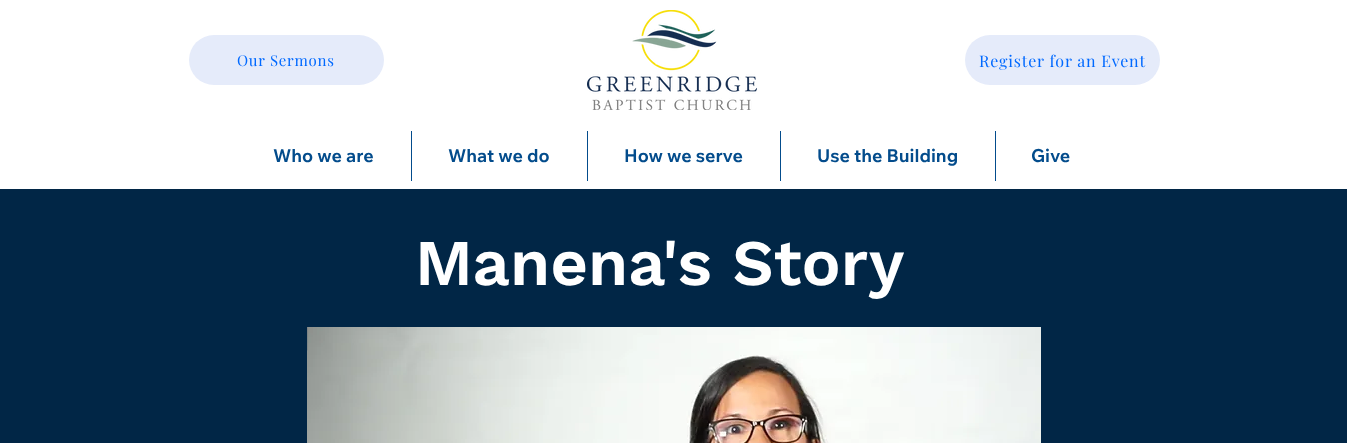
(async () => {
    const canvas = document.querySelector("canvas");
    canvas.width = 1347;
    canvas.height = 443;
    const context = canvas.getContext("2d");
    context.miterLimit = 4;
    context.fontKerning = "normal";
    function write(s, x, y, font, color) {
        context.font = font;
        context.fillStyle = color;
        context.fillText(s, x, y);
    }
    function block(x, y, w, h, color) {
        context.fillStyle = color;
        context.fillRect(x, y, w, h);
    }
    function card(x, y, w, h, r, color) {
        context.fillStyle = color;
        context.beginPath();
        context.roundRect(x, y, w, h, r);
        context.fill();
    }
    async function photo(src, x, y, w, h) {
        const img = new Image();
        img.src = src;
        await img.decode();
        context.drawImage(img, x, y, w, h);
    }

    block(0, 0, 1347, 443, "rgb(255, 255, 255)");
    card(189, 35, 195, 50, 25, "rgb(229, 235, 250)");
    context.letterSpacing = "0.75px";
    write("Our Sermons", 237, 66, "15px Playfair Display", "rgb(0, 105, 255)");
    await photo("media/1.png", 587, 10, 170, 100);
    card(965, 35, 195, 50, 25, "rgb(229, 235, 250)");
    context.letterSpacing = "0.8px";
    write("Register for an Event", 979, 67, "16px Playfair Display", "rgb(0, 105, 255)");
    context.letterSpacing = "0px";
    write("Who we are", 273, 162, "bold 18px Wix Madefor Text", "rgb(3, 76, 140)");
    block(411, 131, 1, 50, "rgb(3, 76, 140)");
    write("What we do", 448, 162, "bold 18px Wix Madefor Text", "rgb(3, 76, 140)");
    block(587, 131, 1, 50, "rgb(3, 76, 140)");
    write("How we serve", 624, 162, "bold 18px Wix Madefor Text", "rgb(3, 76, 140)");
    block(780, 131, 1, 50, "rgb(3, 76, 140)");
    write("Use the Building", 817, 162, "bold 18px Wix Madefor Text", "rgb(3, 76, 140)");
    block(995, 131, 1, 50, "rgb(3, 76, 140)");
    write("Give", 1031, 162, "bold 18px Wix Madefor Text", "rgb(3, 76, 140)");
    block(0, 189, 1347, 254, "rgb(1, 38, 70)");
    write("Manena's Story", 415, 285, "600 65px Work Sans", "rgb(255, 255, 255)");
    await photo("media/2.png", 307, 327, 734, 116);
})();
